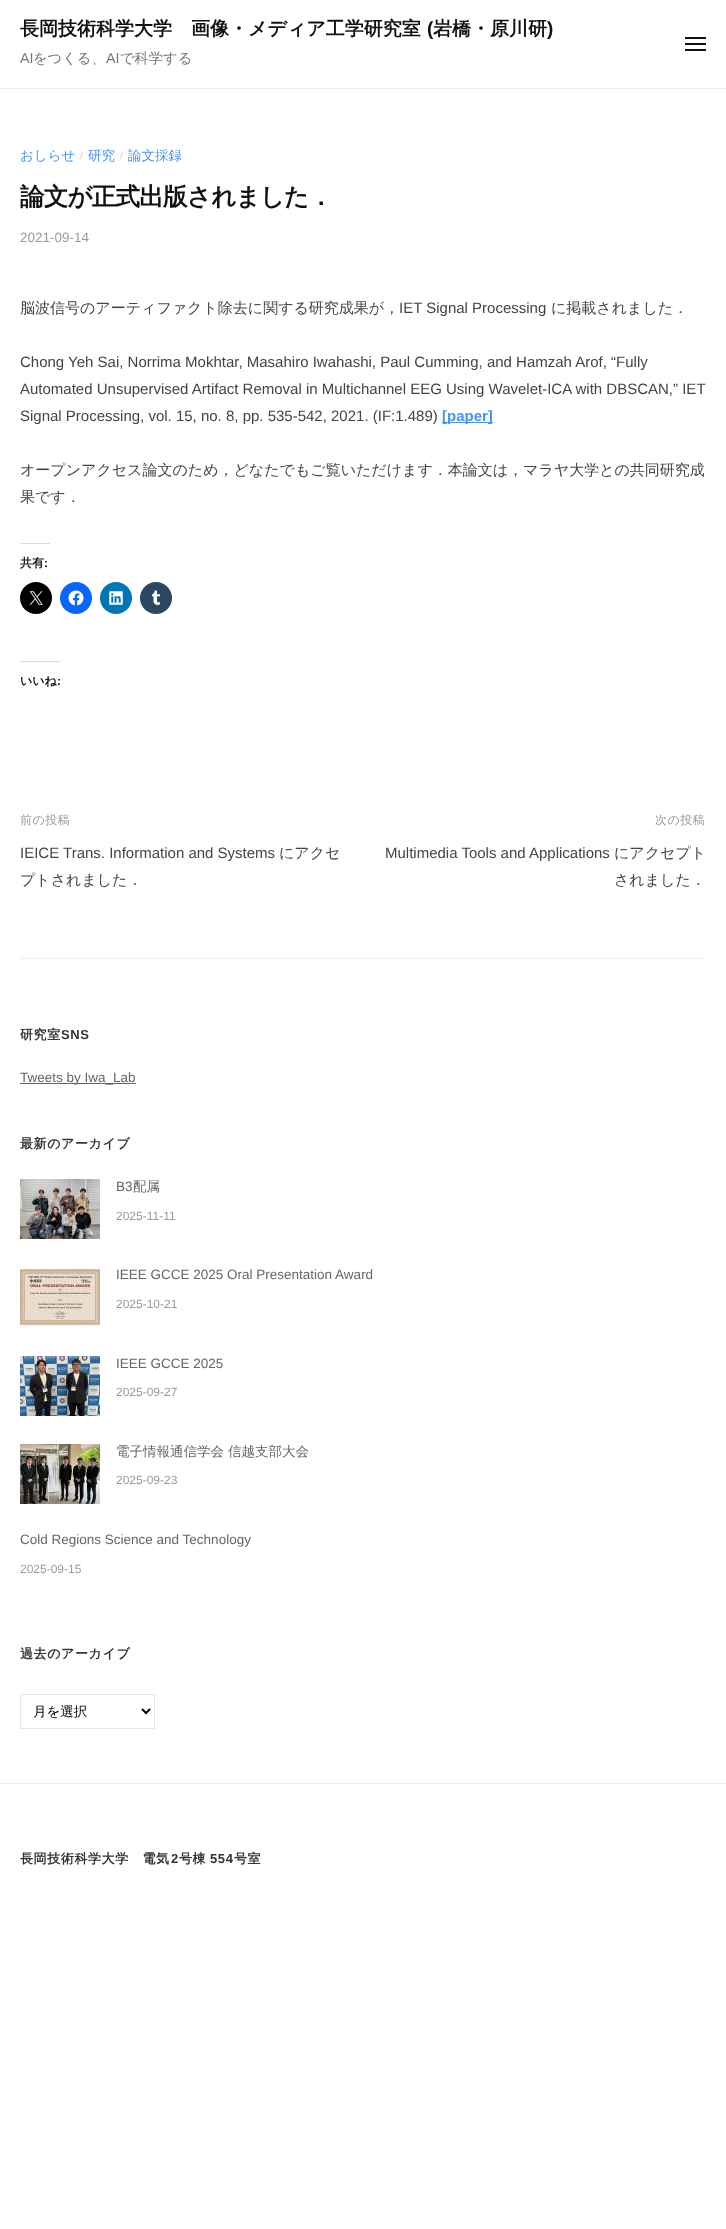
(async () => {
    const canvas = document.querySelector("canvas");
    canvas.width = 726;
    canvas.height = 2229;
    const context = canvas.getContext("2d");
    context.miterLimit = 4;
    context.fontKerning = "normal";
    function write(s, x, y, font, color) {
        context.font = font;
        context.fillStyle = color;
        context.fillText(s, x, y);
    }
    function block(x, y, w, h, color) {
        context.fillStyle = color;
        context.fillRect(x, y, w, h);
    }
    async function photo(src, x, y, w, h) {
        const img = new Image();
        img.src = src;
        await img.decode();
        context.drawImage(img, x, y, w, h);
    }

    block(0, 0, 726, 2229, "rgb(255, 255, 255)");
    block(0, 88, 726, 1, "rgb(238, 238, 238)");
    write("長岡技術科学大学　画像・メディア工学研究室", 20, 35, "bold 19px WenQuanYi Zen Hei", "rgb(17, 17, 17)");
    write("(", 427, 35, "bold 19px Liberation Sans", "rgb(17, 17, 17)");
    write("岩橋・原川研", 433, 35, "bold 19px WenQuanYi Zen Hei", "rgb(17, 17, 17)");
    write(")", 547, 35, "bold 19px Liberation Sans", "rgb(17, 17, 17)");
    write("AI", 20, 63, "14.25px Liberation Sans", "rgb(119, 119, 119)");
    write("をつくる、", 33, 63, "500 14.25px WenQuanYi Zen Hei", "rgb(119, 119, 119)");
    write("AI", 106, 63, "14.25px Liberation Sans", "rgb(119, 119, 119)");
    write("で科学する", 120, 63, "500 14.25px WenQuanYi Zen Hei", "rgb(119, 119, 119)");
    block(685, 43, 21, 2, "rgb(17, 17, 17)");
    block(685, 37, 21, 2, "rgb(17, 17, 17)");
    block(685, 49, 21, 2, "rgb(17, 17, 17)");
    write("おしらせ", 20, 160, "500 13.5px WenQuanYi Zen Hei", "rgb(70, 147, 245)");
    write("/", 80, 159, "11px Liberation Sans", "rgb(204, 204, 204)");
    write("研究", 88, 160, "500 13.5px WenQuanYi Zen Hei", "rgb(70, 147, 245)");
    write("/", 120, 159, "11px Liberation Sans", "rgb(204, 204, 204)");
    write("論文採録", 128, 160, "500 13.5px WenQuanYi Zen Hei", "rgb(70, 147, 245)");
    context.letterSpacing = "-0.75px";
    write("論文が正式出版されました．", 20, 205, "bold 24.5px WenQuanYi Zen Hei", "rgb(17, 17, 17)");
    context.letterSpacing = "0px";
    write("2021-09-14", 20, 242, "13.5px Liberation Sans", "rgb(153, 153, 153)");
    write("脳波信号のアーティファクト除去に関する研究成果が，", 20, 313, "500 15px WenQuanYi Zen Hei", "rgb(68, 68, 68)");
    write("IET Signal Processing", 399, 313, "15px Liberation Sans", "rgb(68, 68, 68)");
    write("に掲載されました．", 551, 313, "500 15px WenQuanYi Zen Hei", "rgb(68, 68, 68)");
    write("Chong Yeh Sai, Norrima Mokhtar, Masahiro Iwahashi, Paul Cumming, and Hamzah Arof, “Fully", 20, 367, "15px Liberation Sans", "rgb(68, 68, 68)");
    write("Automated Unsupervised Artifact Removal in Multichannel EEG Using Wavelet-ICA with DBSCAN,” IET", 20, 394, "15px Liberation Sans", "rgb(68, 68, 68)");
    write("Signal Processing, vol. 15, no. 8, pp. 535-542, 2021. (IF:1.489)", 20, 421, "15px Liberation Sans", "rgb(68, 68, 68)");
    block(442, 422, 51, 1, "rgb(70, 147, 245)");
    write("[paper]", 442, 421, "bold 15px Liberation Sans", "rgb(70, 147, 245)");
    write("オープンアクセス論文のため，どなたでもご覧いただけます．本論文は，マラヤ大学との共同研究成", 20, 475, "500 15px WenQuanYi Zen Hei", "rgb(68, 68, 68)");
    write("果です．", 20, 502, "500 15px WenQuanYi Zen Hei", "rgb(68, 68, 68)");
    block(20, 543, 30, 1, "rgb(220, 220, 222)");
    write("共有", 20, 567, "bold 12px WenQuanYi Zen Hei", "rgb(17, 17, 17)");
    write(":", 44, 567, "bold 12px Liberation Sans", "rgb(17, 17, 17)");
    context.fillStyle = "rgb(0, 0, 0)";
    context.beginPath();
    context.arc(36, 598, 16, 0, Math.PI * 2);
    context.fill();
    await photo("media/1.png", 29, 591, 14, 14);
    context.fillStyle = "rgb(8, 102, 255)";
    context.beginPath();
    context.arc(76, 598, 16, 0, Math.PI * 2);
    context.fill();
    await photo("media/2.png", 68, 590, 16, 16);
    context.fillStyle = "rgb(0, 119, 181)";
    context.beginPath();
    context.arc(116, 598, 16, 0, Math.PI * 2);
    context.fill();
    await photo("media/3.png", 109, 591, 14, 14);
    context.fillStyle = "rgb(44, 71, 98)";
    context.beginPath();
    context.arc(156, 598, 16, 0, Math.PI * 2);
    context.fill();
    await photo("media/4.png", 151, 590, 10, 15);
    block(20, 661, 41, 1, "rgb(220, 220, 222)");
    write("いいね", 20, 685, "bold 12px WenQuanYi Zen Hei", "rgb(17, 17, 17)");
    write(":", 57, 685, "bold 12px Liberation Sans", "rgb(17, 17, 17)");
    context.letterSpacing = "0.5px";
    write("前の投稿", 20, 824, "500 12px WenQuanYi Zen Hei", "rgb(153, 153, 153)");
    context.letterSpacing = "0px";
    write("IEICE Trans. Information and Systems", 20, 858, "15px Liberation Sans", "rgb(68, 68, 68)");
    write("にアクセ", 279, 858, "500 15px WenQuanYi Zen Hei", "rgb(68, 68, 68)");
    write("プトされました．", 20, 885, "500 15px WenQuanYi Zen Hei", "rgb(68, 68, 68)");
    context.letterSpacing = "0.5px";
    write("次の投稿", 655, 824, "500 12px WenQuanYi Zen Hei", "rgb(153, 153, 153)");
    context.letterSpacing = "0px";
    write("Multimedia Tools and Applications", 385, 858, "15px Liberation Sans", "rgb(68, 68, 68)");
    write("にアクセプト", 614, 858, "500 15px WenQuanYi Zen Hei", "rgb(68, 68, 68)");
    write("されました．", 614, 885, "500 15px WenQuanYi Zen Hei", "rgb(68, 68, 68)");
    block(20, 958, 686, 1, "rgb(238, 238, 238)");
    context.letterSpacing = "0.6px";
    write("研究室", 20, 1039, "bold 13px WenQuanYi Zen Hei", "rgb(51, 51, 51)");
    write("SNS", 61, 1039, "bold 13px Liberation Sans", "rgb(51, 51, 51)");
    block(20, 1083, 116, 1, "rgb(102, 102, 102)");
    context.letterSpacing = "0px";
    write("Tweets by Iwa_Lab", 20, 1082, "13.5px Liberation Sans", "rgb(102, 102, 102)");
    context.letterSpacing = "0.6px";
    write("最新のアーカイブ", 20, 1148, "bold 13px WenQuanYi Zen Hei", "rgb(51, 51, 51)");
    await photo("media/5.png", 20, 1179, 80, 60);
    context.letterSpacing = "0px";
    write("B3", 116, 1191, "13.5px Liberation Sans", "rgb(102, 102, 102)");
    write("配属", 133, 1191, "500 13.5px WenQuanYi Zen Hei", "rgb(102, 102, 102)");
    write("2025-11-11", 116, 1220, "12px Liberation Sans", "rgb(153, 153, 153)");
    await photo("media/6.png", 20, 1267, 80, 60);
    write("IEEE GCCE 2025 Oral Presentation Award", 116, 1279, "13.5px Liberation Sans", "rgb(102, 102, 102)");
    write("2025-10-21", 116, 1308, "12px Liberation Sans", "rgb(153, 153, 153)");
    await photo("media/7.png", 20, 1356, 80, 60);
    write("IEEE GCCE 2025", 116, 1368, "13.5px Liberation Sans", "rgb(102, 102, 102)");
    write("2025-09-27", 116, 1396, "12px Liberation Sans", "rgb(153, 153, 153)");
    await photo("media/8.png", 20, 1444, 80, 60);
    write("電子情報通信学会 信越支部大会", 116, 1456, "500 13.5px WenQuanYi Zen Hei", "rgb(102, 102, 102)");
    write("2025-09-23", 116, 1484, "12px Liberation Sans", "rgb(153, 153, 153)");
    write("Cold Regions Science and Technology", 20, 1544, "13.5px Liberation Sans", "rgb(102, 102, 102)");
    write("2025-09-15", 20, 1573, "12px Liberation Sans", "rgb(153, 153, 153)");
    context.letterSpacing = "0.6px";
    write("過去のアーカイブ", 20, 1658, "bold 13px WenQuanYi Zen Hei", "rgb(51, 51, 51)");
    context.strokeStyle = "rgb(230, 230, 230)";
    context.strokeRect(20.5, 1694.5, 134, 34);
    context.beginPath();
    context.moveTo(142, 1709);
    context.lineTo(146, 1713);
    context.lineTo(150, 1709);
    context.strokeStyle = "rgb(0, 0, 0)";
    context.lineWidth = 2;
    context.stroke();
    context.letterSpacing = "0px";
    write("月を選択", 33, 1716, "500 13.5px WenQuanYi Zen Hei", "rgb(0, 0, 0)");
    block(0, 1783, 726, 1, "rgb(238, 238, 238)");
    context.letterSpacing = "0.6px";
    write("長岡技術科学大学　電気", 20, 1863, "bold 13px WenQuanYi Zen Hei", "rgb(51, 51, 51)");
    write("2", 171, 1863, "bold 13px Liberation Sans", "rgb(51, 51, 51)");
    write("号棟", 179, 1863, "bold 13px WenQuanYi Zen Hei", "rgb(51, 51, 51)");
    write("554", 210, 1863, "bold 13px Liberation Sans", "rgb(51, 51, 51)");
    write("号室", 234, 1863, "bold 13px WenQuanYi Zen Hei", "rgb(51, 51, 51)");
})();
